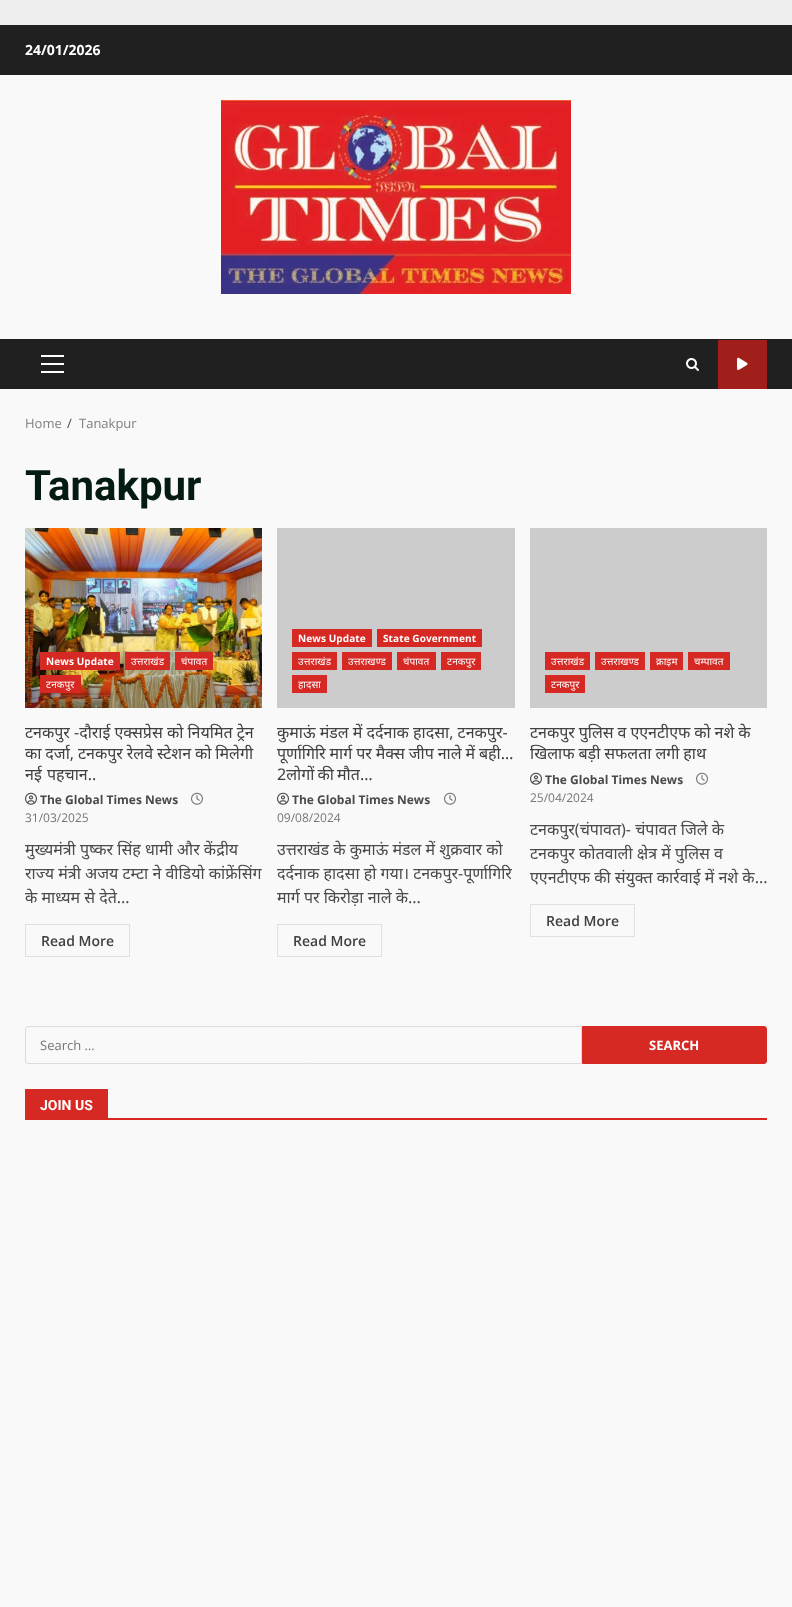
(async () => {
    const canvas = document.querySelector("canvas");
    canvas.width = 792;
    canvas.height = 1607;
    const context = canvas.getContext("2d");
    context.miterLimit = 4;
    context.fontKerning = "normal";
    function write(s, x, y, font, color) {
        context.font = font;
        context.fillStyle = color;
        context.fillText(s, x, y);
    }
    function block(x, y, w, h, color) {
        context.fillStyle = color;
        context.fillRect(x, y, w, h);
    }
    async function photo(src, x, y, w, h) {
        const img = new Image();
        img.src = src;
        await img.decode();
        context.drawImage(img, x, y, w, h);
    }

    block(0, 0, 792, 1607, "rgb(238, 238, 238)");
    block(0, 75, 792, 1532, "rgb(249, 249, 249)");
    block(0, 25, 792, 50, "rgb(32, 32, 32)");
    write("24/01/2026", 25, 55, "bold 14px Open Sans", "rgb(255, 255, 255)");
    await photo("media/1.png", 221, 100, 350, 194);
    block(0, 339, 792, 50, "rgb(32, 32, 32)");
    block(41, 363, 23, 2, "rgb(255, 255, 255)");
    block(41, 355, 23, 2, "rgb(255, 255, 255)");
    block(41, 371, 23, 2, "rgb(255, 255, 255)");
    await photo("media/2.png", 686, 358, 13, 13);
    block(718, 340, 49, 49, "rgb(161, 31, 27)");
    await photo("media/3.png", 737, 357, 11, 13);
    write("Home", 25, 428, "13px Open Sans", "rgb(127, 127, 127)");
    write("/", 67, 428, "13px Open Sans", "rgb(74, 74, 74)");
    write("Tanakpur", 79, 428, "13px Open Sans", "rgb(127, 127, 127)");
    write("Tanakpur", 25, 500, "bold 42px Roboto", "rgb(3, 27, 17)");
    await photo("media/4.png", 25, 528, 237, 180);
    block(40, 652, 80, 18, "rgb(215, 41, 36)");
    context.letterSpacing = "0.1px";
    write("News Update", 46, 665, "bold 10px Open Sans", "rgb(255, 255, 255)");
    block(125, 652, 45, 18, "rgb(215, 41, 36)");
    write("उत्तराखंड", 131, 665, "10px Noto Sans", "rgb(255, 255, 255)");
    block(175, 652, 38, 18, "rgb(215, 41, 36)");
    write("चंपावत", 181, 665, "10px Noto Sans", "rgb(255, 255, 255)");
    block(40, 675, 41, 18, "rgb(215, 41, 36)");
    write("टनकपुर", 46, 688, "10px Noto Sans", "rgb(255, 255, 255)");
    context.letterSpacing = "0px";
    write("टनकपुर -दौराई एक्सप्रेस को नियमित ट्रेन", 25, 738, "16px Noto Sans", "rgb(64, 64, 64)");
    context.wordSpacing = "-0.25px";
    write("का दर्जा, टनकपुर रेलवे स्टेशन को मिलेगी", 25, 759, "16px Noto Sans", "rgb(64, 64, 64)");
    context.wordSpacing = "1px";
    write("नई पहचान..", 25, 780, "16px Noto Sans", "rgb(64, 64, 64)");
    await photo("media/5.png", 25, 792, 12, 13);
    context.wordSpacing = "0px";
    write("The Global Times News", 40, 804, "bold 12px Open Sans", "rgb(74, 74, 74)");
    await photo("media/6.png", 191, 792, 12, 13);
    write("31/03/2025", 25, 822, "12px Open Sans", "rgb(117, 117, 117)");
    write("मुख्यमंत्री पुष्कर सिंह धामी और केंद्रीय", 25, 855, "16px Noto Sans", "rgb(74, 74, 74)");
    write("राज्य मंत्री अजय टम्टा ने वीडियो कांफ्रेंसिंग", 25, 879, "16px Noto Sans", "rgb(74, 74, 74)");
    context.save();
    context.beginPath();
    context.rect(18, 528, 252, 468);
    context.clip();
    write("के माध्यम से देते...", 25, 903, "16px Noto Sans", "rgb(74, 74, 74)");
    context.restore();
    context.strokeStyle = "rgb(224, 224, 224)";
    context.strokeRect(25.5, 924.5, 104, 32);
    write("Read More", 41, 946, "600 14px Open Sans", "rgb(64, 64, 64)");
    block(277, 528, 238, 180, "rgb(204, 204, 204)");
    block(292, 629, 80, 18, "rgb(215, 41, 36)");
    context.letterSpacing = "0.1px";
    write("News Update", 298, 642, "bold 10px Open Sans", "rgb(255, 255, 255)");
    block(377, 629, 105, 18, "rgb(215, 41, 36)");
    write("State Government", 383, 642, "bold 10px Open Sans", "rgb(255, 255, 255)");
    block(292, 652, 45, 18, "rgb(215, 41, 36)");
    write("उत्तराखंड", 298, 665, "10px Noto Sans", "rgb(255, 255, 255)");
    block(342, 652, 50, 18, "rgb(215, 41, 36)");
    write("उत्तराखण्ड", 348, 665, "10px Noto Sans", "rgb(255, 255, 255)");
    block(397, 652, 39, 18, "rgb(215, 41, 36)");
    write("चंपावत", 403, 665, "10px Noto Sans", "rgb(255, 255, 255)");
    block(441, 652, 40, 18, "rgb(215, 41, 36)");
    write("टनकपुर", 447, 665, "10px Noto Sans", "rgb(255, 255, 255)");
    block(292, 675, 35, 18, "rgb(215, 41, 36)");
    write("हादसा", 298, 688, "10px Noto Sans", "rgb(255, 255, 255)");
    context.save();
    context.beginPath();
    context.rect(270, 528, 252, 468);
    context.clip();
    context.letterSpacing = "0px";
    write("कुमाऊं मंडल में दर्दनाक हादसा, टनकपुर-", 277, 738, "16px Noto Sans", "rgb(64, 64, 64)");
    context.restore();
    context.letterSpacing = "0px";
    context.wordSpacing = "-0.25px";
    write("पूर्णागिरि मार्ग पर मैक्स जीप नाले में बही…", 277, 759, "16px Noto Sans", "rgb(64, 64, 64)");
    context.wordSpacing = "-1px";
    write("2लोगों की मौत…", 277, 780, "16px Noto Sans", "rgb(64, 64, 64)");
    await photo("media/5.png", 277, 792, 12, 13);
    context.wordSpacing = "0px";
    write("The Global Times News", 292, 804, "bold 12px Open Sans", "rgb(74, 74, 74)");
    await photo("media/6.png", 444, 792, 12, 13);
    write("09/08/2024", 277, 822, "12px Open Sans", "rgb(117, 117, 117)");
    write("उत्तराखंड के कुमाऊं मंडल में शुक्रवार को", 277, 855, "16px Noto Sans", "rgb(74, 74, 74)");
    write("दर्दनाक हादसा हो गया। टनकपुर-पूर्णागिरि", 277, 879, "16px Noto Sans", "rgb(74, 74, 74)");
    write("मार्ग पर किरोड़ा नाले के...", 277, 903, "16px Noto Sans", "rgb(74, 74, 74)");
    context.strokeRect(277.5, 924.5, 104, 32);
    write("Read More", 293, 946, "600 14px Open Sans", "rgb(64, 64, 64)");
    block(530, 528, 237, 180, "rgb(204, 204, 204)");
    block(545, 652, 45, 18, "rgb(215, 41, 36)");
    context.letterSpacing = "0.1px";
    write("उत्तराखंड", 551, 665, "10px Noto Sans", "rgb(255, 255, 255)");
    block(595, 652, 50, 18, "rgb(215, 41, 36)");
    write("उत्तराखण्ड", 601, 665, "10px Noto Sans", "rgb(255, 255, 255)");
    block(650, 652, 33, 18, "rgb(215, 41, 36)");
    write("क्राइम", 656, 665, "10px Noto Sans", "rgb(255, 255, 255)");
    block(688, 652, 42, 18, "rgb(215, 41, 36)");
    write("चम्पावत", 694, 665, "10px Noto Sans", "rgb(255, 255, 255)");
    block(545, 675, 40, 18, "rgb(215, 41, 36)");
    write("टनकपुर", 551, 688, "10px Noto Sans", "rgb(255, 255, 255)");
    context.letterSpacing = "0px";
    context.wordSpacing = "-0.25px";
    write("टनकपुर पुलिस व एएनटीएफ को नशे के", 530, 738, "16px Noto Sans", "rgb(64, 64, 64)");
    write("खिलाफ बड़ी सफलता लगी हाथ", 530, 759, "16px Noto Sans", "rgb(64, 64, 64)");
    await photo("media/5.png", 530, 772, 12, 13);
    context.wordSpacing = "0px";
    write("The Global Times News", 545, 784, "bold 12px Open Sans", "rgb(74, 74, 74)");
    await photo("media/6.png", 696, 772, 12, 13);
    write("25/04/2024", 530, 802, "12px Open Sans", "rgb(117, 117, 117)");
    write("टनकपुर(चंपावत)- चंपावत जिले के", 530, 835, "16px Noto Sans", "rgb(74, 74, 74)");
    write("टनकपुर कोतवाली क्षेत्र में पुलिस व", 530, 859, "16px Noto Sans", "rgb(74, 74, 74)");
    write("एएनटीएफ की संयुक्त कार्रवाई में नशे के...", 530, 883, "16px Noto Sans", "rgb(74, 74, 74)");
    context.strokeRect(530.5, 904.5, 104, 32);
    write("Read More", 546, 926, "600 14px Open Sans", "rgb(64, 64, 64)");
    context.beginPath();
    context.roundRect(25.5, 1026.5, 556, 37, [2.5, 0, 0, 2.5]);
    context.strokeStyle = "rgb(220, 220, 220)";
    context.stroke();
    write("Search …", 40, 1050, "13px Open Sans", "rgb(117, 117, 117)");
    context.fillStyle = "rgb(215, 41, 36)";
    context.beginPath();
    context.roundRect(582.5, 1026.5, 184, 37, [0, 2.5, 2.5, 0]);
    context.fill();
    context.strokeStyle = "rgb(215, 41, 36)";
    context.stroke();
    write("SEARCH", 649, 1050, "bold 13px Open Sans", "rgb(255, 255, 255)");
    block(25, 1118, 742, 2, "rgb(215, 41, 36)");
    block(25, 1089, 83, 29, "rgb(215, 41, 36)");
    write("JOIN US", 40, 1110, "bold 14px Roboto", "rgb(255, 255, 255)");
})();
